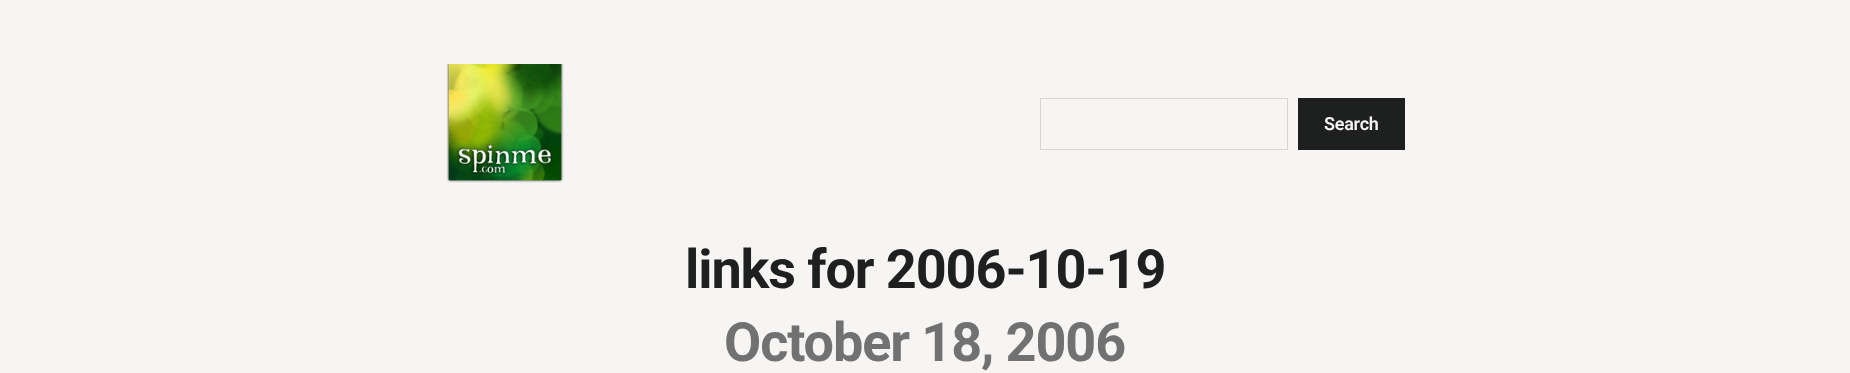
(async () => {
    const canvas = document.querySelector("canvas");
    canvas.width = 1850;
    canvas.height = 373;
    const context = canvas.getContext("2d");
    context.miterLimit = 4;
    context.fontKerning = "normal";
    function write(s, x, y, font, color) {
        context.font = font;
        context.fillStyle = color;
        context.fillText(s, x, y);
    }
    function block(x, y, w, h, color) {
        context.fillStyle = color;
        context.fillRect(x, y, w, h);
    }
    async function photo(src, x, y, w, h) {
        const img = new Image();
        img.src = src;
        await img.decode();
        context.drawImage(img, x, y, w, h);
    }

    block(0, 0, 1850, 373, "rgb(247, 245, 243)");
    await photo("media/1.png", 446, 64, 118, 119);
    context.strokeStyle = "rgb(214, 213, 211)";
    context.strokeRect(1040.5, 98.5, 247, 51);
    block(1298, 98, 107, 52, "rgb(29, 32, 31)");
    context.letterSpacing = "-0.25px";
    write("Search", 1324, 130, "600 18px Roboto", "rgb(247, 245, 243)");
    context.letterSpacing = "-1.1px";
    write("links for 2006-10-19", 685, 288, "bold 54px Roboto", "rgb(29, 32, 31)");
    write("October 18, 2006", 724, 361, "bold 54px Roboto", "rgb(112, 113, 112)");
})();
